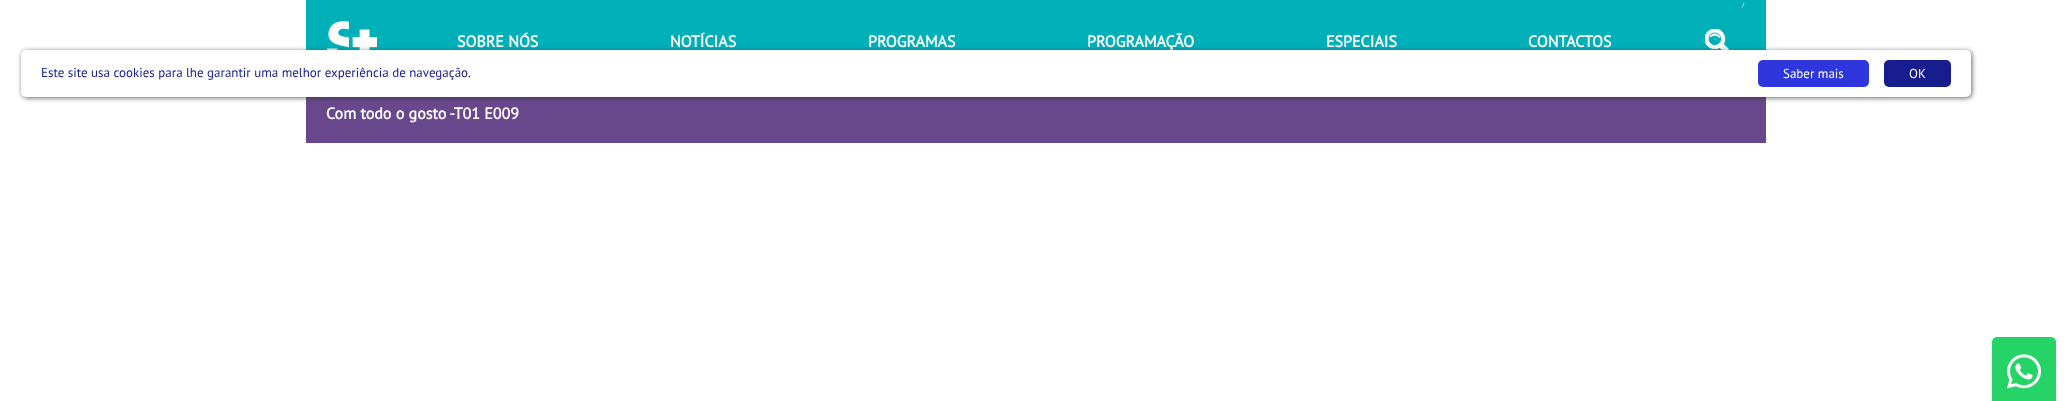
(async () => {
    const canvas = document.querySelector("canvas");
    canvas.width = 2071;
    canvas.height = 401;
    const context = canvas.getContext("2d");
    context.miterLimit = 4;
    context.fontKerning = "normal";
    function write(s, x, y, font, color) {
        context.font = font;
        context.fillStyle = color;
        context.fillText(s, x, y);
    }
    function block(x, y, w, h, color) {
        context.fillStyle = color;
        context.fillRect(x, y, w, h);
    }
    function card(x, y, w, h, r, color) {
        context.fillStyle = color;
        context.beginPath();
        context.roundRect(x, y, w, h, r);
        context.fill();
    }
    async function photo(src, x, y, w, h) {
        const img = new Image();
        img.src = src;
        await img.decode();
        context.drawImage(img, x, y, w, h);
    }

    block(0, 0, 2071, 401, "rgb(255, 255, 255)");
    block(306, 0, 1460, 50, "rgb(0, 176, 185)");
    write("/", 1742, 7, "6px PT Sans", "rgb(255, 255, 255)");
    await photo("media/1.png", 327, 21, 50, 29);
    write("SOBRE NÓS", 457, 47, "bold 16px PT Sans", "rgb(255, 255, 255)");
    write("NOTÍCIAS", 670, 47, "bold 16px PT Sans", "rgb(255, 255, 255)");
    write("PROGRAMAS", 868, 47, "bold 16px PT Sans", "rgb(255, 255, 255)");
    write("PROGRAMAÇÃO", 1087, 47, "bold 16px PT Sans", "rgb(255, 255, 255)");
    write("ESPECIAIS", 1326, 47, "bold 16px PT Sans", "rgb(255, 255, 255)");
    write("CONTACTOS", 1528, 47, "bold 16px PT Sans", "rgb(255, 255, 255)");
    await photo("media/2.png", 1705, 29, 24, 21);
    block(306, 97, 1460, 46, "rgb(104, 71, 141)");
    write("Com todo o gosto -T01 E009", 326, 119, "bold 16px PT Sans", "rgb(255, 255, 255)");
    context.fillStyle = "rgba(50, 50, 50, 0.75)";
    context.filter = "blur(2.5px)";
    context.beginPath();
    context.roundRect(22, 51, 1950, 47, 5);
    context.fill();
    context.filter = "none";
    card(21, 50, 1950, 47, 5, "rgb(255, 255, 255)");
    write("Este site usa cookies para lhe garantir uma melhor experiência de navegação.", 41, 77, "13px PT Sans", "rgb(23, 28, 143)");
    card(1758, 60, 111, 27, 5, "rgb(47, 54, 221)");
    write("Saber mais", 1783, 78, "13px PT Sans", "rgb(255, 255, 255)");
    card(1884, 60, 67, 27, 5, "rgb(23, 28, 143)");
    write("OK", 1909, 78, "13px PT Sans", "rgb(255, 255, 255)");
    context.fillStyle = "rgb(37, 211, 102)";
    context.beginPath();
    context.roundRect(1992, 337, 64, 64, [5, 5, 0, 0]);
    context.fill();
    await photo("media/3.png", 2007, 354, 34, 35);
})();
